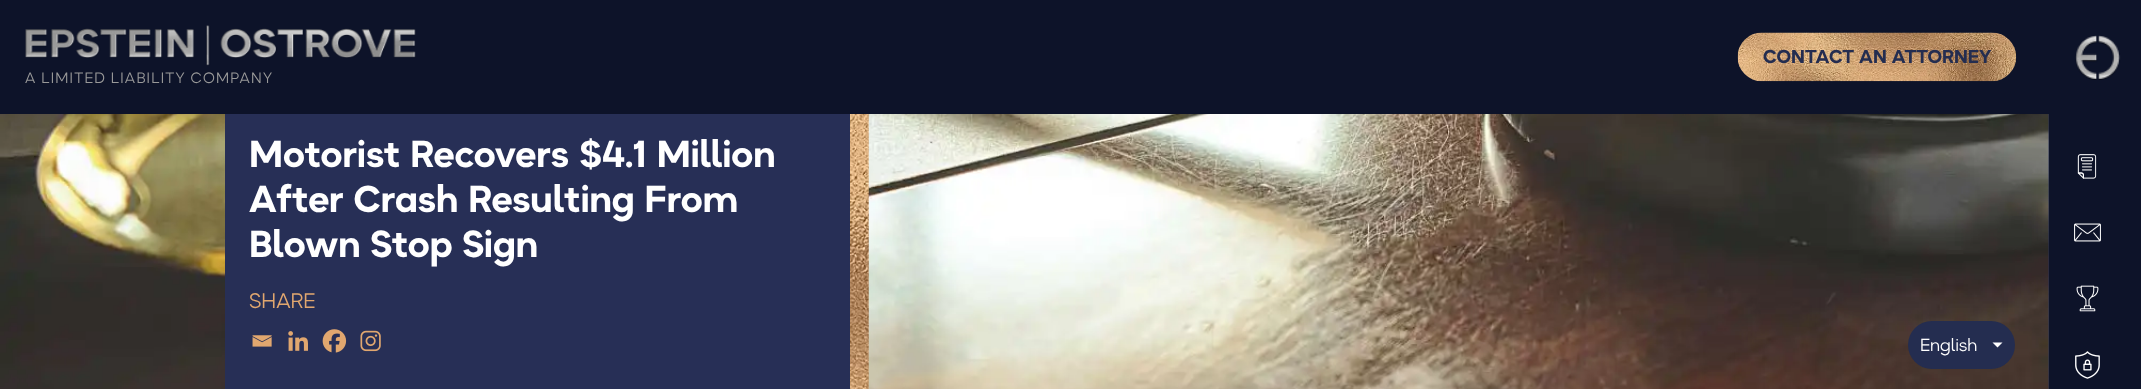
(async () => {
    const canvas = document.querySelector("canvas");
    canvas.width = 2141;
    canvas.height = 389;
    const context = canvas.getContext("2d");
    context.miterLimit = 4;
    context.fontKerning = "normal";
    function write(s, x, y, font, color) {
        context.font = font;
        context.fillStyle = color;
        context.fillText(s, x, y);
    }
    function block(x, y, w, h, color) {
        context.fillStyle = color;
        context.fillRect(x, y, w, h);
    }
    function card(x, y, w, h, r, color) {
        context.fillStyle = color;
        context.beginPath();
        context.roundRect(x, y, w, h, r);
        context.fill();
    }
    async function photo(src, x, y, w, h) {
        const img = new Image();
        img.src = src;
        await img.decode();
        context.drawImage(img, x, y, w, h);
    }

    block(0, 0, 2141, 389, "rgb(39, 47, 86)");
    block(0, 0, 2141, 114, "rgb(13, 19, 41)");
    await photo("media/1.png", 1737, 32, 280, 50);
    write("CONTACT AN ATTORNEY", 1763, 63, "bold 18.75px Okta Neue", "rgb(36, 45, 80)");
    await photo("media/2.png", 2075, 35, 46, 45);
    await photo("media/3.png", 25, 25, 391, 41);
    context.letterSpacing = "1.25px";
    write("A LIMITED LIABILITY COMPANY", 25, 83, "15px Okta Neue", "rgb(153, 153, 153)");
    await photo("media/4.png", 0, 114, 2049, 275);
    block(225, 114, 625, 275, "rgb(39, 47, 86)");
    context.letterSpacing = "0px";
    write("Motorist Recovers $4.1 Million", 249, 167, "bold 37.5px Okta Neue", "rgb(255, 255, 255)");
    write("After Crash Resulting From", 249, 212, "bold 37.5px Okta Neue", "rgb(255, 255, 255)");
    write("Blown Stop Sign", 249, 257, "bold 37.5px Okta Neue", "rgb(255, 255, 255)");
    write("SHARE", 249, 308, "21px Okta Neue", "rgb(225, 167, 111)");
    await photo("media/5.png", 252, 335, 20, 12);
    await photo("media/6.png", 288, 331, 20, 20);
    await photo("media/7.png", 322, 329, 25, 24);
    await photo("media/8.png", 360, 330, 21, 22);
    await photo("media/9.png", 850, 114, 19, 275);
    context.fillStyle = "rgb(128, 128, 128)";
    context.filter = "blur(3px)";
    context.beginPath();
    context.roundRect(2054, 298, 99, 75, 2.5);
    context.fill();
    context.filter = "none";
    block(2049, 114, 92, 275, "rgb(13, 19, 41)");
    await photo("media/10.png", 2077, 154, 20, 25);
    await photo("media/11.png", 2074, 223, 27, 19);
    await photo("media/12.png", 2076, 285, 23, 27);
    await photo("media/13.png", 2075, 351, 25, 28);
    card(1908, 321, 107, 48, 24, "rgb(36, 45, 80)");
    write("English", 1920, 351, "17.5px Okta Neue", "rgb(255, 255, 255)");
    context.beginPath();
    context.moveTo(1992.5, 342.5);
    context.lineTo(2002.5, 342.5);
    context.lineTo(1997.5, 347.5);
    context.closePath();
    context.fill();
})();
